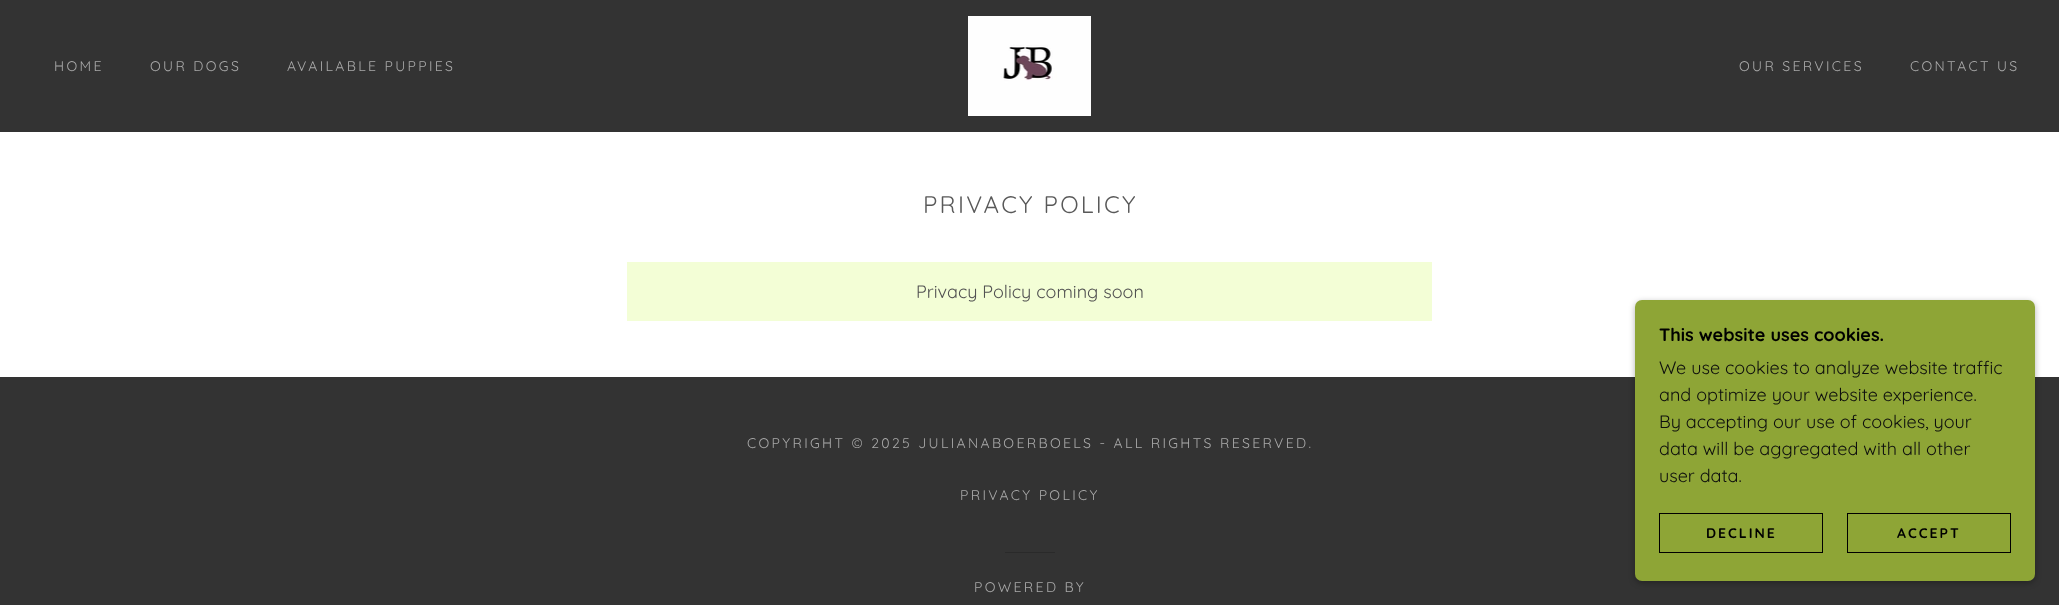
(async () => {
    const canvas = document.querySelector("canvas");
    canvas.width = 2059;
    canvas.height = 605;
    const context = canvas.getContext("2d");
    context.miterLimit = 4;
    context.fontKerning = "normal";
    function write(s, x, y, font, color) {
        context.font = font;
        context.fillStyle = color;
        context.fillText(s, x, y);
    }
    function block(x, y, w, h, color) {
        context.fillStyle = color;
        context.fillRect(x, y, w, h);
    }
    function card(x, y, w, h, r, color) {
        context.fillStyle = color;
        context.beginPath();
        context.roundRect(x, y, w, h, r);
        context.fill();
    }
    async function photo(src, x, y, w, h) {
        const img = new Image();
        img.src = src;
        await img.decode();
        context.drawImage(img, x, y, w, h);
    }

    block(0, 0, 2059, 605, "rgb(51, 51, 51)");
    context.letterSpacing = "2.35px";
    write("HOME", 54, 71, "14px Quicksand", "rgb(169, 169, 169)");
    write("OUR DOGS", 150, 71, "14px Quicksand", "rgb(169, 169, 169)");
    write("AVAILABLE PUPPIES", 287, 71, "14px Quicksand", "rgb(169, 169, 169)");
    await photo("media/1.png", 968, 16, 123, 100);
    write("OUR SERVICES", 1739, 71, "14px Quicksand", "rgb(169, 169, 169)");
    write("CONTACT US", 1910, 71, "14px Quicksand", "rgb(169, 169, 169)");
    block(0, 132, 2059, 245, "rgb(255, 255, 255)");
    context.letterSpacing = "2.25px";
    write("PRIVACY POLICY", 923, 213, "24px Quicksand", "rgb(89, 89, 89)");
    block(627, 262, 805, 59, "rgb(243, 254, 214)");
    context.letterSpacing = "0px";
    write("Privacy Policy coming soon", 916, 298, "18px Quicksand", "rgb(82, 82, 82)");
    context.letterSpacing = "2.35px";
    write("COPYRIGHT © 2025 JULIANABOERBOELS - ALL RIGHTS RESERVED.", 747, 448, "14px Quicksand", "rgb(169, 169, 169)");
    write("PRIVACY POLICY", 960, 500, "14px Quicksand", "rgb(169, 169, 169)");
    block(1005, 552, 50, 1, "rgb(42, 42, 42)");
    write("POWERED BY", 974, 592, "14px Quicksand", "rgb(169, 169, 169)");
    context.fillStyle = "rgba(0, 0, 0, 0.3)";
    context.filter = "blur(3px)";
    context.beginPath();
    context.roundRect(1635, 302, 400, 281, 7);
    context.fill();
    context.filter = "none";
    card(1635, 300, 400, 281, 7, "rgb(142, 165, 54)");
    context.letterSpacing = "0px";
    write("This website uses cookies.", 1659, 341, "bold 18px Quicksand", "rgb(0, 0, 0)");
    write("We use cookies to analyze website traffic", 1659, 374, "18px Quicksand", "rgb(14, 15, 14)");
    write("and optimize your website experience.", 1659, 401, "18px Quicksand", "rgb(14, 15, 14)");
    write("By accepting our use of cookies, your", 1659, 428, "18px Quicksand", "rgb(14, 15, 14)");
    write("data will be aggregated with all other", 1659, 455, "18px Quicksand", "rgb(14, 15, 14)");
    write("user data.", 1659, 482, "18px Quicksand", "rgb(14, 15, 14)");
    context.strokeStyle = "rgb(0, 0, 0)";
    context.strokeRect(1659.5, 513.5, 163, 39);
    context.letterSpacing = "2px";
    write("DECLINE", 1706, 538, "bold 14px Quicksand", "rgb(0, 0, 0)");
    context.strokeRect(1847.5, 513.5, 163, 39);
    write("ACCEPT", 1897, 538, "bold 14px Quicksand", "rgb(0, 0, 0)");
})();
